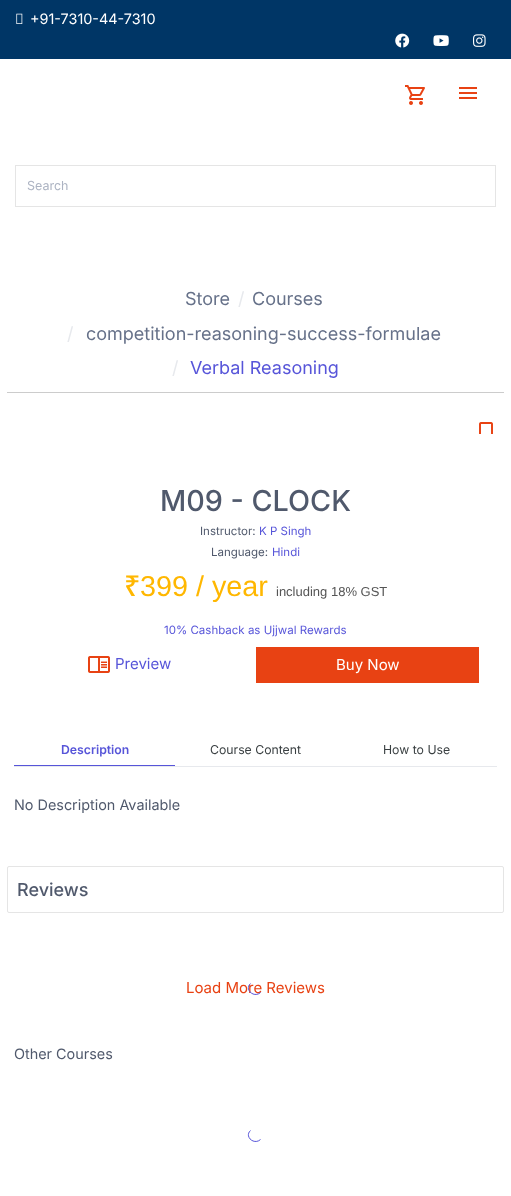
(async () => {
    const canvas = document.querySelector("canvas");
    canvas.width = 511;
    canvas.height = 1196;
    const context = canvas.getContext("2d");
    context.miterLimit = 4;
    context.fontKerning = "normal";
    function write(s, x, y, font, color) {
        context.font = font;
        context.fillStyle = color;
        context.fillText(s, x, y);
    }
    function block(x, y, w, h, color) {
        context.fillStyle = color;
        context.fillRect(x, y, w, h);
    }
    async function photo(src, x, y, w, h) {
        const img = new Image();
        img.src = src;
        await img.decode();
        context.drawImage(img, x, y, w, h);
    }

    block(0, 0, 511, 1196, "rgb(255, 255, 255)");
    block(0, 0, 511, 59, "rgb(0, 54, 102)");
    await photo("media/1.png", 16, 13, 7, 11);
    write("+91-7310-44-7310", 30, 24, "14.4px Inter", "rgb(255, 255, 255)");
    await photo("media/2.png", 395, 33, 15, 15);
    await photo("media/3.png", 433, 35, 16, 11);
    await photo("media/4.png", 473, 34, 13, 13);
    await photo("media/5.png", 405, 85, 20, 20);
    await photo("media/6.png", 459, 87, 18, 12);
    context.strokeStyle = "rgb(229, 229, 229)";
    context.strokeRect(15.5, 165.5, 480, 41);
    write("Search", 27, 190, "12.5px Inter", "rgb(172, 179, 194)");
    block(7, 392, 497, 1, "rgb(204, 204, 204)");
    write("Store", 185, 305, "18px Inter", "rgb(102, 113, 137)");
    write("/", 238, 305, "18px Inter", "rgb(231, 233, 237)");
    write("Courses", 252, 305, "18px Inter", "rgb(102, 113, 137)");
    write("/", 67, 340, "18px Inter", "rgb(231, 233, 237)");
    write("competition-reasoning-success-formulae", 86, 340, "18px Inter", "rgb(102, 113, 137)");
    write("/", 172, 374, "18px Inter", "rgb(231, 233, 237)");
    write("Verbal Reasoning", 190, 374, "18px Inter", "rgb(87, 85, 217)");
    await photo("media/7.png", 479, 422, 14, 12);
    write("M09 - CLOCK", 160, 511, "500 28.75px Inter", "rgb(80, 89, 108)");
    write("Instructor:", 200, 535, "11.5px Inter", "rgb(80, 89, 108)");
    write("K P Singh", 259, 535, "11.5px Inter", "rgb(87, 85, 217)");
    write("Language:", 211, 556, "11.5px Inter", "rgb(80, 89, 108)");
    write("Hindi", 272, 556, "11.5px Inter", "rgb(87, 85, 217)");
    write("₹", 124, 596, "500 28.75px Noto Sans", "rgb(255, 183, 0)");
    write("399 / year", 140, 596, "28.75px Liberation Sans", "rgb(255, 183, 0)");
    write("including 18% GST", 276, 596, "13px Liberation Sans", "rgb(85, 85, 85)");
    write("10% Cashback as Ujjwal Rewards", 164, 634, "11.5px Inter", "rgb(87, 85, 217)");
    await photo("media/8.png", 88, 656, 22, 17);
    write("Preview", 115, 669, "15px Inter", "rgb(87, 85, 217)");
    block(256, 647, 223, 36, "rgb(232, 66, 19)");
    write("Buy Now", 336, 670, "15px Inter", "rgb(255, 255, 255)");
    block(14, 766, 483, 1, "rgb(231, 233, 237)");
    block(14, 765, 161, 1, "rgb(87, 85, 217)");
    write("Description", 61, 754, "600 12.25px Inter", "rgb(87, 85, 217)");
    write("Course Content", 210, 754, "12.25px Inter", "rgb(57, 63, 65)");
    write("How to Use", 383, 754, "12.25px Inter", "rgb(57, 63, 65)");
    write("No Description Available", 14, 810, "14.4px Inter", "rgb(80, 89, 108)");
    context.beginPath();
    context.roundRect(7.5, 866.5, 496, 46, 1.5);
    context.stroke();
    write("Reviews", 17, 896, "500 18px Inter", "rgb(80, 89, 108)");
    write("Load More Reviews", 186, 993, "15px Inter", "rgb(232, 66, 19)");
    context.beginPath();
    context.moveTo(260.5, 992.5);
    context.bezierCurveTo(254, 998.5, 244, 989.5, 250.5, 983.5);
    context.strokeStyle = "rgb(87, 85, 217)";
    context.stroke();
    write("Other Courses", 14, 1059, "14.4px Inter", "rgb(80, 89, 108)");
    context.beginPath();
    context.moveTo(260.5, 1139.5);
    context.bezierCurveTo(254, 1145.5, 244, 1136.5, 250.5, 1130.5);
    context.stroke();
})();
